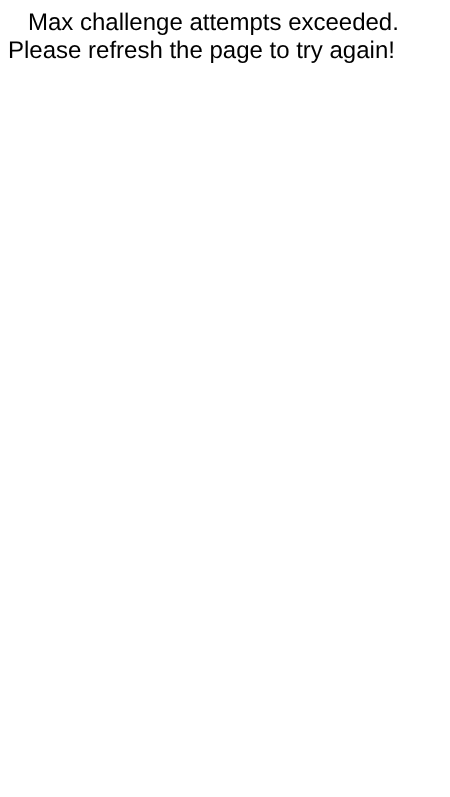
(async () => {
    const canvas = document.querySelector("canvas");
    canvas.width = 450;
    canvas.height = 797;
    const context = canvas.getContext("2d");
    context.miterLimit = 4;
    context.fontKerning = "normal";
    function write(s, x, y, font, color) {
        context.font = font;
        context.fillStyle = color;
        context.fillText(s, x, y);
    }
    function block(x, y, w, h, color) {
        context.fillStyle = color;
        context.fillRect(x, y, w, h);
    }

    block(0, 0, 450, 797, "rgb(255, 255, 255)");
    write("Max challenge attempts exceeded.", 28, 30, "24px Liberation Sans", "rgb(0, 0, 0)");
    write("Please refresh the page to try again!", 8, 58, "24px Liberation Sans", "rgb(0, 0, 0)");
})();
